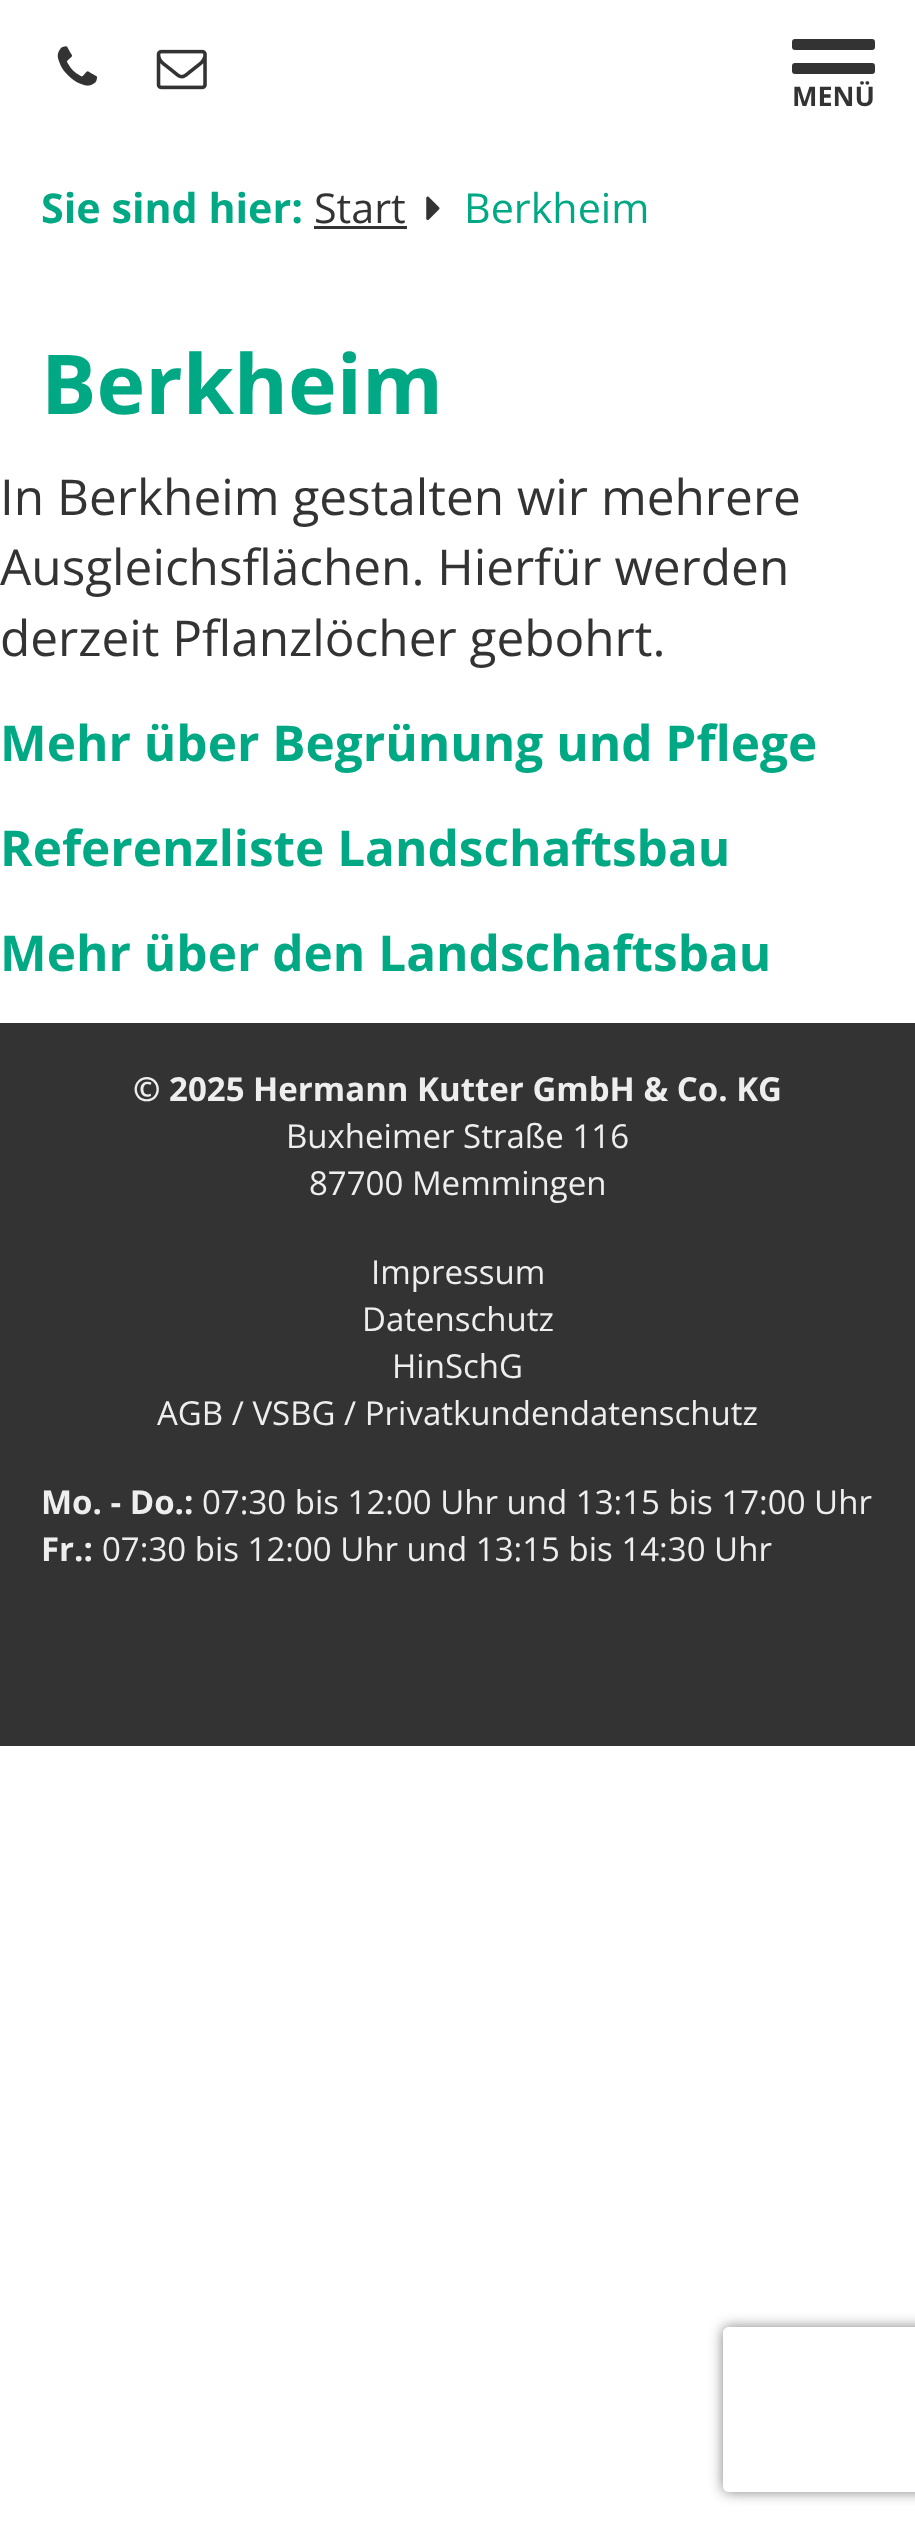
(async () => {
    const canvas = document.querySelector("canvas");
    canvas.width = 915;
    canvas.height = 2528;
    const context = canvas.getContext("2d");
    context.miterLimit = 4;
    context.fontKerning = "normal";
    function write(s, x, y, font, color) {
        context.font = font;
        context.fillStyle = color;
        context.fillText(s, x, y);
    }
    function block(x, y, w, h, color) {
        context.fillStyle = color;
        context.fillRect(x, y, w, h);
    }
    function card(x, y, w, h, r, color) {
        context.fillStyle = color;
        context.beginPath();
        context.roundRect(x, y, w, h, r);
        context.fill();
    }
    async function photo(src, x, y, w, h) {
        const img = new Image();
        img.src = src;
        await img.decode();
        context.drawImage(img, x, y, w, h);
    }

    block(0, 0, 915, 2528, "rgb(255, 255, 255)");
    await photo("media/1.png", 57, 46, 41, 40);
    await photo("media/2.png", 156, 49, 51, 41);
    card(792, 39, 83, 11, 3, "rgb(51, 51, 51)");
    card(792, 63, 83, 11, 3, "rgb(51, 51, 51)");
    write("MENÜ", 792, 106, "bold 27px Open Sans", "rgb(51, 51, 51)");
    write("Sie sind hier:", 41, 223, "bold 41.25px Open Sans", "rgb(0, 169, 132)");
    write("Start", 314, 223, "41.25px Open Sans", "rgb(51, 51, 51)");
    block(314, 226, 93, 3, "rgb(51, 51, 51)");
    await photo("media/3.png", 426, 196, 14, 25);
    write("Berkheim", 464, 223, "41.25px Open Sans", "rgb(0, 169, 132)");
    write("Berkheim", 41, 414, "bold 82.5px Open Sans", "rgb(0, 169, 132)");
    write("In Berkheim gestalten wir mehrere", 0, 515, "49.5px Open Sans", "rgb(51, 51, 51)");
    write("Ausgleichsflächen. Hierfür werden", 0, 585, "49.5px Open Sans", "rgb(51, 51, 51)");
    write("derzeit Pflanzlöcher gebohrt.", 0, 656, "49.5px Open Sans", "rgb(51, 51, 51)");
    write("Mehr über Begrünung und Pflege", 0, 761, "bold 49.5px Open Sans", "rgb(0, 169, 132)");
    write("Referenzliste Landschaftsbau", 0, 866, "bold 49.5px Open Sans", "rgb(0, 169, 132)");
    write("Mehr über den Landschaftsbau", 0, 971, "bold 49.5px Open Sans", "rgb(0, 169, 132)");
    block(0, 1023, 915, 723, "rgb(51, 51, 51)");
    write("© 2025 Hermann Kutter GmbH & Co. KG", 133, 1101, "bold 33px Open Sans", "rgb(238, 238, 238)");
    write("Buxheimer Straße 116", 286, 1148, "33px Open Sans", "rgb(238, 238, 238)");
    write("87700 Memmingen", 309, 1195, "33px Open Sans", "rgb(238, 238, 238)");
    write("Impressum", 371, 1284, "33px Open Sans", "rgb(238, 238, 238)");
    write("Datenschutz", 362, 1331, "33px Open Sans", "rgb(238, 238, 238)");
    write("HinSchG", 392, 1378, "33px Open Sans", "rgb(238, 238, 238)");
    write("AGB / VSBG / Privatkundendatenschutz", 157, 1425, "33px Open Sans", "rgb(238, 238, 238)");
    write("Mo. - Do.:", 41, 1514, "bold 33px Open Sans", "rgb(238, 238, 238)");
    write("07:30 bis 12:00 Uhr und 13:15 bis 17:00 Uhr", 202, 1514, "33px Open Sans", "rgb(238, 238, 238)");
    write("Fr.:", 41, 1561, "bold 33px Open Sans", "rgb(238, 238, 238)");
    write("07:30 bis 12:00 Uhr und 13:15 bis 14:30 Uhr", 102, 1561, "33px Open Sans", "rgb(238, 238, 238)");
    context.save();
    context.beginPath();
    context.moveTo(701, 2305);
    context.lineTo(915, 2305);
    context.lineTo(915, 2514);
    context.lineTo(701, 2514);
    context.closePath();
    context.moveTo(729, 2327);
    context.lineTo(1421, 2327);
    context.bezierCurveTo(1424.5, 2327, 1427, 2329.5, 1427, 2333);
    context.lineTo(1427, 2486);
    context.bezierCurveTo(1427, 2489.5, 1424.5, 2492, 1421, 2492);
    context.lineTo(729, 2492);
    context.bezierCurveTo(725.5, 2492, 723, 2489.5, 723, 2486);
    context.lineTo(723, 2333);
    context.bezierCurveTo(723, 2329.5, 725.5, 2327, 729, 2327);
    context.closePath();
    context.clip("evenodd");
    context.fillStyle = "rgb(128, 128, 128)";
    context.filter = "blur(7px)";
    context.beginPath();
    context.roundRect(723, 2327, 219, 165, 6);
    context.fill();
    context.filter = "none";
    context.restore();
})();
